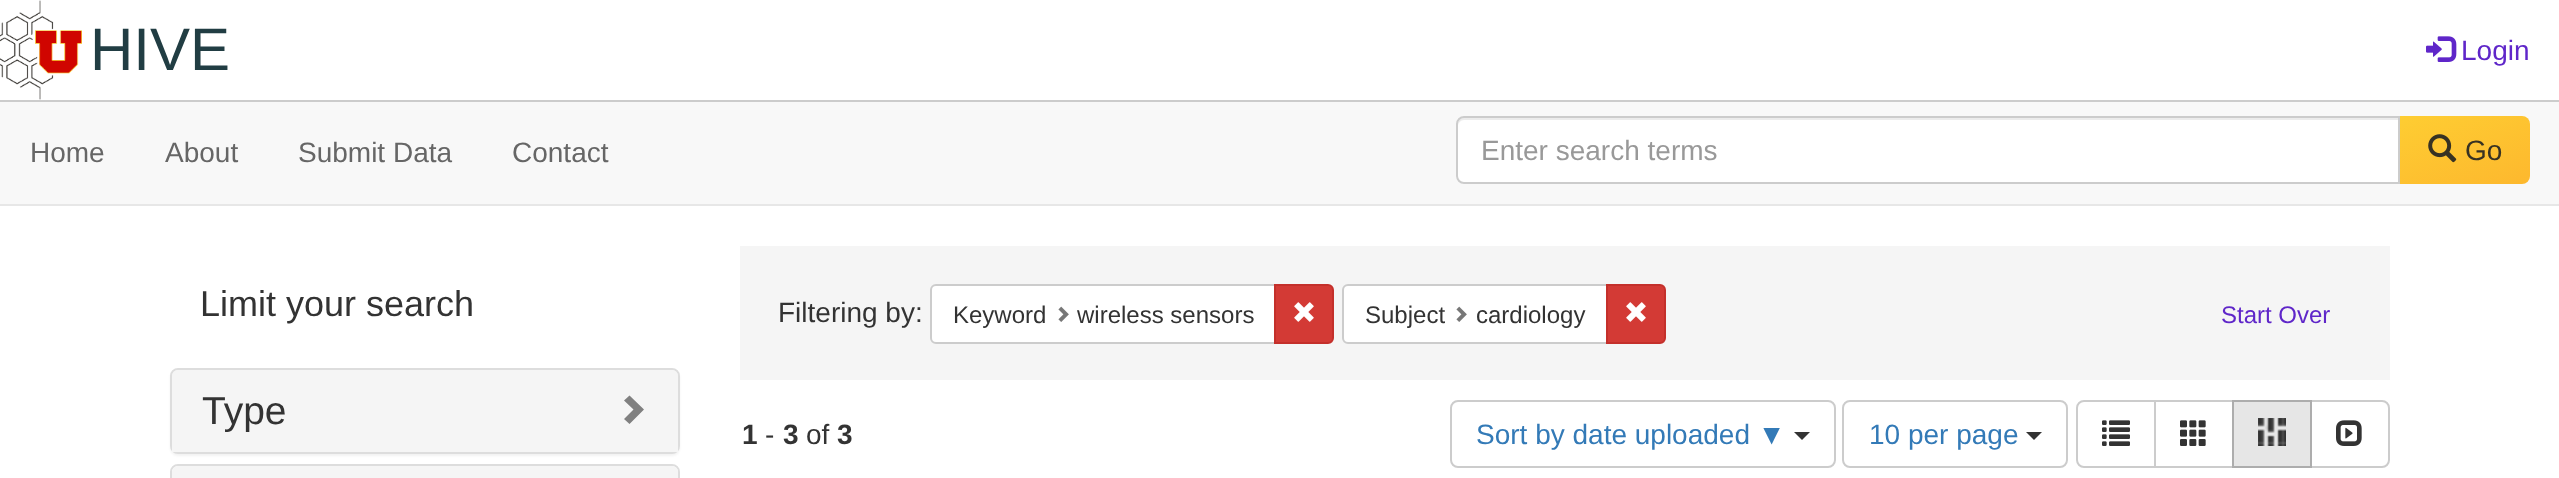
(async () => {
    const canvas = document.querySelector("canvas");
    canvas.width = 2559;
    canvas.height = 478;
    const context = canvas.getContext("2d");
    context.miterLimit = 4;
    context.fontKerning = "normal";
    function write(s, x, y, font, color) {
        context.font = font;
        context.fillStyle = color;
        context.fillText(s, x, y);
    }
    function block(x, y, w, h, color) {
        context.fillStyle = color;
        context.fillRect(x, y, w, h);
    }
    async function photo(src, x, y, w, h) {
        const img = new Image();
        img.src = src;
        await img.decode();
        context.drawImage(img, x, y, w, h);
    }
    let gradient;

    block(0, 0, 2559, 478, "rgb(255, 255, 255)");
    block(0, 100, 2559, 2, "rgb(204, 204, 204)");
    await photo("media/1.png", 0, 0, 82, 100);
    write("HIVE", 90, 70, "60px Liberation Sans", "rgb(33, 61, 67)");
    await photo("media/2.png", 2426, 36, 31, 26);
    write("Login", 2461, 60, "28px Liberation Sans", "rgb(95, 38, 201)");
    block(0, 102, 2559, 102, "rgb(248, 248, 248)");
    block(0, 204, 2559, 2, "rgb(231, 231, 231)");
    write("Home", 30, 162, "28px Liberation Sans", "rgb(102, 102, 102)");
    write("About", 165, 162, "28px Liberation Sans", "rgb(102, 102, 102)");
    write("Submit Data", 298, 162, "28px Liberation Sans", "rgb(102, 102, 102)");
    write("Contact", 512, 162, "28px Liberation Sans", "rgb(102, 102, 102)");
    context.fillStyle = "rgb(255, 255, 255)";
    context.beginPath();
    context.roundRect(1456, 116, 944, 68, [8, 0, 0, 8]);
    context.fill();
    context.fillStyle = "rgb(236, 236, 236)";
    context.beginPath();
    context.moveTo(1464, 120);
    context.lineTo(2398, 120);
    context.lineTo(2398, 118);
    context.lineTo(1464, 118);
    context.bezierCurveTo(1459, 118, 1458, 122, 1458, 126);
    context.bezierCurveTo(1458, 123, 1461, 120, 1464, 120);
    context.closePath();
    context.fill();
    context.beginPath();
    context.roundRect(1457, 117, 942, 66, [7, 0, 0, 7]);
    context.strokeStyle = "rgb(204, 204, 204)";
    context.lineWidth = 2;
    context.stroke();
    write("Enter search terms", 1481, 160, "28px Liberation Sans", "rgb(153, 153, 153)");
    gradient = context.createLinearGradient(2445, 99, 2485, 201);
    gradient.addColorStop(0, "rgb(254, 205, 50)");
    gradient.addColorStop(1, "rgb(253, 184, 46)");
    context.fillStyle = gradient;
    context.beginPath();
    context.roundRect(2400, 116, 130, 68, [0, 8, 8, 0]);
    context.fill();
    await photo("media/3.png", 2428, 134, 29, 29);
    write("Go", 2465, 160, "28px Liberation Sans", "rgb(55, 50, 35)");
    write("Limit your search", 200, 316, "36px Liberation Sans", "rgb(51, 51, 51)");
    context.fillStyle = "rgba(0, 0, 0, 0.05)";
    context.filter = "blur(1px)";
    context.beginPath();
    context.roundRect(170, 370, 510, 86, 8);
    context.fill();
    context.filter = "none";
    context.beginPath();
    context.roundRect(171, 369, 508, 84, 7);
    context.strokeStyle = "rgb(221, 221, 221)";
    context.stroke();
    context.fillStyle = "rgb(245, 245, 245)";
    context.beginPath();
    context.roundRect(172, 370, 506, 82, [6, 6, 0, 0]);
    context.fill();
    write("Type", 202, 424, "39px Liberation Sans", "rgb(51, 51, 51)");
    context.fillStyle = "rgb(128, 128, 128)";
    context.beginPath();
    context.moveTo(644, 409.5);
    context.lineTo(629.5, 424);
    context.lineTo(624, 419);
    context.lineTo(633.5, 409.5);
    context.lineTo(624, 400.5);
    context.lineTo(629.5, 395.5);
    context.closePath();
    context.fill();
    context.beginPath();
    context.roundRect(171, 465, 508, 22, 7);
    context.stroke();
    context.fillStyle = "rgb(245, 245, 245)";
    context.beginPath();
    context.moveTo(178, 466);
    context.lineTo(672, 466);
    context.bezierCurveTo(675.5, 466, 678, 468.5, 678, 472);
    context.lineTo(678, 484);
    context.lineTo(172, 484);
    context.lineTo(172, 472);
    context.bezierCurveTo(172, 468.5, 174.5, 466, 178, 466);
    context.closePath();
    context.fill();
    block(740, 246, 1650, 134, "rgb(245, 245, 245)");
    write("Filtering by:", 778, 322, "28px Liberation Sans", "rgb(51, 51, 51)");
    context.fillStyle = "rgb(255, 255, 255)";
    context.beginPath();
    context.roundRect(931, 285, 344, 58, [5, 0, 0, 5]);
    context.fill();
    context.strokeStyle = "rgb(204, 204, 204)";
    context.stroke();
    write("Keyword", 953, 323, "24px Liberation Sans", "rgb(51, 51, 51)");
    await photo("media/4.png", 1058, 306, 11, 16);
    write("wireless sensors", 1077, 323, "24px Liberation Sans", "rgb(51, 51, 51)");
    context.fillStyle = "rgb(211, 58, 53)";
    context.beginPath();
    context.roundRect(1275, 285, 58, 58, [0, 5, 5, 0]);
    context.fill();
    context.strokeStyle = "rgb(196, 48, 43)";
    context.stroke();
    await photo("media/5.png", 1294, 302, 20, 20);
    context.fillStyle = "rgb(255, 255, 255)";
    context.beginPath();
    context.roundRect(1343, 285, 264, 58, [5, 0, 0, 5]);
    context.fill();
    context.strokeStyle = "rgb(204, 204, 204)";
    context.stroke();
    write("Subject", 1365, 323, "24px Liberation Sans", "rgb(51, 51, 51)");
    await photo("media/4.png", 1456, 306, 11, 16);
    write("cardiology", 1476, 323, "24px Liberation Sans", "rgb(51, 51, 51)");
    context.fillStyle = "rgb(211, 58, 53)";
    context.beginPath();
    context.roundRect(1607, 285, 58, 58, [0, 5, 5, 0]);
    context.fill();
    context.strokeStyle = "rgb(196, 48, 43)";
    context.stroke();
    await photo("media/5.png", 1626, 302, 20, 20);
    write("Start Over", 2221, 323, "24px Liberation Sans", "rgb(95, 38, 201)");
    write("1", 742, 444, "bold 28px Liberation Sans", "rgb(51, 51, 51)");
    write("-", 765, 444, "28px Liberation Sans", "rgb(51, 51, 51)");
    write("3", 783, 444, "bold 28px Liberation Sans", "rgb(51, 51, 51)");
    write("of", 806, 444, "28px Liberation Sans", "rgb(51, 51, 51)");
    write("3", 837, 444, "bold 28px Liberation Sans", "rgb(51, 51, 51)");
    context.beginPath();
    context.roundRect(1451, 401, 384, 66, 7);
    context.strokeStyle = "rgb(204, 204, 204)";
    context.stroke();
    write("Sort by date uploaded ▼", 1476, 444, "28px Liberation Sans", "rgb(51, 122, 183)");
    context.fillStyle = "rgb(51, 51, 51)";
    context.beginPath();
    context.moveTo(1794, 432);
    context.lineTo(1810, 432);
    context.lineTo(1802, 440);
    context.closePath();
    context.fill();
    context.beginPath();
    context.roundRect(1843, 401, 224, 66, 7);
    context.stroke();
    write("10 per page", 1869, 444, "28px Liberation Sans", "rgb(51, 122, 183)");
    context.fillStyle = "rgb(51, 51, 51)";
    context.beginPath();
    context.moveTo(2026, 432);
    context.lineTo(2042, 432);
    context.lineTo(2034, 440);
    context.closePath();
    context.fill();
    context.beginPath();
    context.roundRect(2077, 401, 78, 66, [7, 0, 0, 7]);
    context.stroke();
    await photo("media/6.png", 2102, 420, 28, 26);
    context.strokeRect(2155, 401, 78, 66);
    await photo("media/7.png", 2180, 420, 26, 26);
    context.beginPath();
    context.roundRect(2311, 401, 78, 66, [0, 7, 7, 0]);
    context.stroke();
    context.fillStyle = "rgb(230, 230, 230)";
    context.beginPath();
    context.rect(2233, 401, 78, 66);
    context.fill();
    context.strokeStyle = "rgb(173, 173, 173)";
    context.stroke();
    await photo("media/8.png", 2258, 418, 28, 28);
    await photo("media/9.png", 2336, 420, 26, 26);
})();
